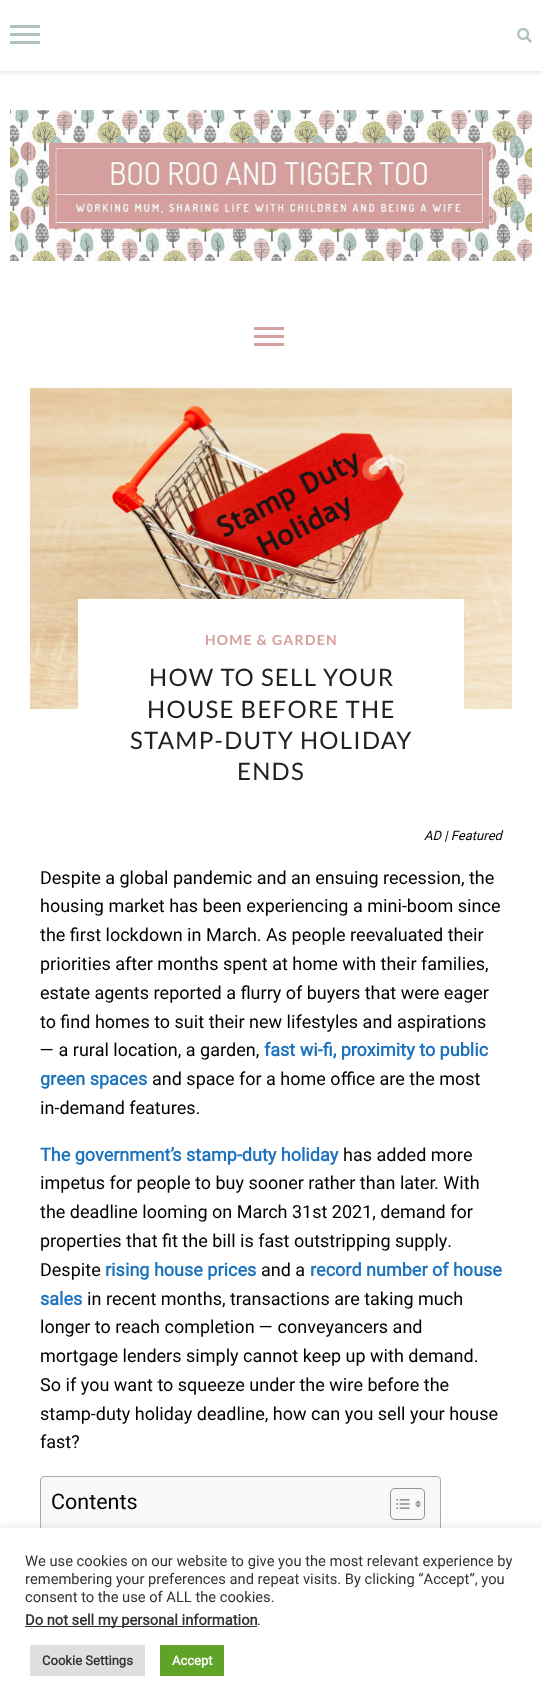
(async () => {
    const canvas = document.querySelector("canvas");
    canvas.width = 542;
    canvas.height = 1706;
    const context = canvas.getContext("2d");
    context.miterLimit = 4;
    context.fontKerning = "normal";
    function write(s, x, y, font, color) {
        context.font = font;
        context.fillStyle = color;
        context.fillText(s, x, y);
    }
    function block(x, y, w, h, color) {
        context.fillStyle = color;
        context.fillRect(x, y, w, h);
    }
    async function photo(src, x, y, w, h) {
        const img = new Image();
        img.src = src;
        await img.decode();
        context.drawImage(img, x, y, w, h);
    }

    block(0, 0, 542, 1706, "rgb(255, 255, 255)");
    context.save();
    context.beginPath();
    context.rect(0, 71, 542, 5);
    context.clip();
    context.fillStyle = "rgba(190, 190, 190, 0.5)";
    context.filter = "blur(2.5px)";
    context.beginPath();
    context.rect(0, 1, 542, 71);
    context.fill();
    context.filter = "none";
    context.restore();
    block(10, 25, 30, 3, "rgb(174, 195, 188)");
    block(10, 33, 30, 3, "rgb(174, 195, 188)");
    block(10, 41, 30, 3, "rgb(174, 195, 188)");
    await photo("media/1.png", 517, 27, 15, 16);
    await photo("media/2.png", 10, 110, 522, 151);
    block(254, 327, 30, 3, "rgb(212, 159, 156)");
    block(254, 335, 30, 3, "rgb(212, 159, 156)");
    block(254, 343, 30, 3, "rgb(212, 159, 156)");
    await photo("media/3.png", 30, 388, 482, 321);
    block(78, 599, 386, 110, "rgb(255, 255, 255)");
    context.letterSpacing = "1.25px";
    write("HOME & GARDEN", 205, 645, "bold 14px Lato", "rgb(212, 159, 156)");
    write("HOW TO SELL YOUR", 149, 686, "24px Lato", "rgb(34, 34, 34)");
    write("HOUSE BEFORE THE", 147, 718, "24px Lato", "rgb(34, 34, 34)");
    write("STAMP-DUTY HOLIDAY", 130, 749, "24px Lato", "rgb(34, 34, 34)");
    write("ENDS", 237, 780, "24px Lato", "rgb(34, 34, 34)");
    context.letterSpacing = "0px";
    write("AD | Featured", 424, 840, "italic 13px Heebo", "rgb(0, 0, 0)");
    write("Despite a global pandemic and an ensuing recession, the", 40, 884, "18px Heebo", "rgb(0, 0, 0)");
    write("housing market has been experiencing a mini-boom since", 40, 912, "18px Heebo", "rgb(0, 0, 0)");
    write("the first lockdown in March. As people reevaluated their", 40, 941, "18px Heebo", "rgb(0, 0, 0)");
    write("priorities after months spent at home with their families,", 40, 970, "18px Heebo", "rgb(0, 0, 0)");
    write("estate agents reported a flurry of buyers that were eager", 40, 999, "18px Heebo", "rgb(0, 0, 0)");
    write("to find homes to suit their new lifestyles and aspirations", 40, 1028, "18px Heebo", "rgb(0, 0, 0)");
    write("— a rural location, a garden,", 40, 1056, "18px Heebo", "rgb(0, 0, 0)");
    write("fast wi-fi, proximity to public", 264, 1056, "bold 18px Heebo", "rgb(30, 115, 190)");
    write("green spaces", 40, 1085, "bold 18px Heebo", "rgb(30, 115, 190)");
    write("and space for a home office are the most", 152, 1085, "18px Heebo", "rgb(0, 0, 0)");
    write("in-demand features.", 40, 1114, "18px Heebo", "rgb(0, 0, 0)");
    write("The government’s stamp-duty holiday", 40, 1161, "bold 18px Heebo", "rgb(30, 115, 190)");
    write("has added more", 343, 1161, "18px Heebo", "rgb(0, 0, 0)");
    write("impetus for people to buy sooner rather than later. With", 40, 1189, "18px Heebo", "rgb(0, 0, 0)");
    write("the deadline looming on March 31st 2021, demand for", 40, 1218, "18px Heebo", "rgb(0, 0, 0)");
    write("properties that fit the bill is fast outstripping supply.", 40, 1247, "18px Heebo", "rgb(0, 0, 0)");
    write("Despite", 40, 1276, "18px Heebo", "rgb(0, 0, 0)");
    write("rising house prices", 105, 1276, "bold 18px Heebo", "rgb(30, 115, 190)");
    write("and a", 261, 1276, "18px Heebo", "rgb(0, 0, 0)");
    write("record number of house", 310, 1276, "bold 18px Heebo", "rgb(30, 115, 190)");
    write("sales", 40, 1305, "bold 18px Heebo", "rgb(30, 115, 190)");
    write("in recent months, transactions are taking much", 87, 1305, "18px Heebo", "rgb(0, 0, 0)");
    write("longer to reach completion — conveyancers and", 40, 1333, "18px Heebo", "rgb(0, 0, 0)");
    write("mortgage lenders simply cannot keep up with demand.", 40, 1362, "18px Heebo", "rgb(0, 0, 0)");
    write("So if you want to squeeze under the wire before the", 40, 1391, "18px Heebo", "rgb(0, 0, 0)");
    write("stamp-duty holiday deadline, how can you sell your house", 40, 1420, "18px Heebo", "rgb(0, 0, 0)");
    write("fast?", 40, 1448, "18px Heebo", "rgb(0, 0, 0)");
    context.fillStyle = "rgb(249, 249, 249)";
    context.beginPath();
    context.roundRect(40.5, 1476.5, 400, 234, 3.5);
    context.fill();
    context.strokeStyle = "rgb(170, 170, 170)";
    context.stroke();
    write("Contents", 51, 1509, "21.5px Heebo", "rgb(0, 0, 0)");
    context.beginPath();
    context.roundRect(390.5, 1488.5, 34, 31, 4.5);
    context.strokeStyle = "rgb(153, 145, 145)";
    context.stroke();
    await photo("media/4.png", 396, 1499, 14, 10);
    await photo("media/5.png", 415, 1500, 6, 8);
    context.fillStyle = "rgba(172, 171, 171, 0.3)";
    context.filter = "blur(5px)";
    context.beginPath();
    context.rect(0, 1527, 542, 178);
    context.fill();
    context.filter = "none";
    block(0, 1528, 542, 178, "rgb(255, 255, 255)");
    write("We use cookies on our website to give you the most relevant experience by", 25, 1566, "14.7px Heebo", "rgb(51, 51, 51)");
    write("remembering your preferences and repeat visits. By clicking “Accept”, you", 25, 1584, "14.7px Heebo", "rgb(51, 51, 51)");
    write("consent to the use of ALL the cookies.", 25, 1602, "14.7px Heebo", "rgb(51, 51, 51)");
    block(25, 1626, 232, 1, "rgb(51, 51, 51)");
    write("Do not sell my personal information", 25, 1625, "bold 14.7px Heebo", "rgb(51, 51, 51)");
    write(".", 257, 1625, "14.7px Heebo", "rgb(51, 51, 51)");
    block(30, 1645, 115, 31, "rgb(222, 223, 224)");
    write("Cookie Settings", 42, 1665, "bold 13px Heebo", "rgb(51, 51, 51)");
    block(160, 1645, 64, 31, "rgb(97, 162, 41)");
    write("Accept", 172, 1665, "bold 13px Heebo", "rgb(255, 255, 255)");
})();
